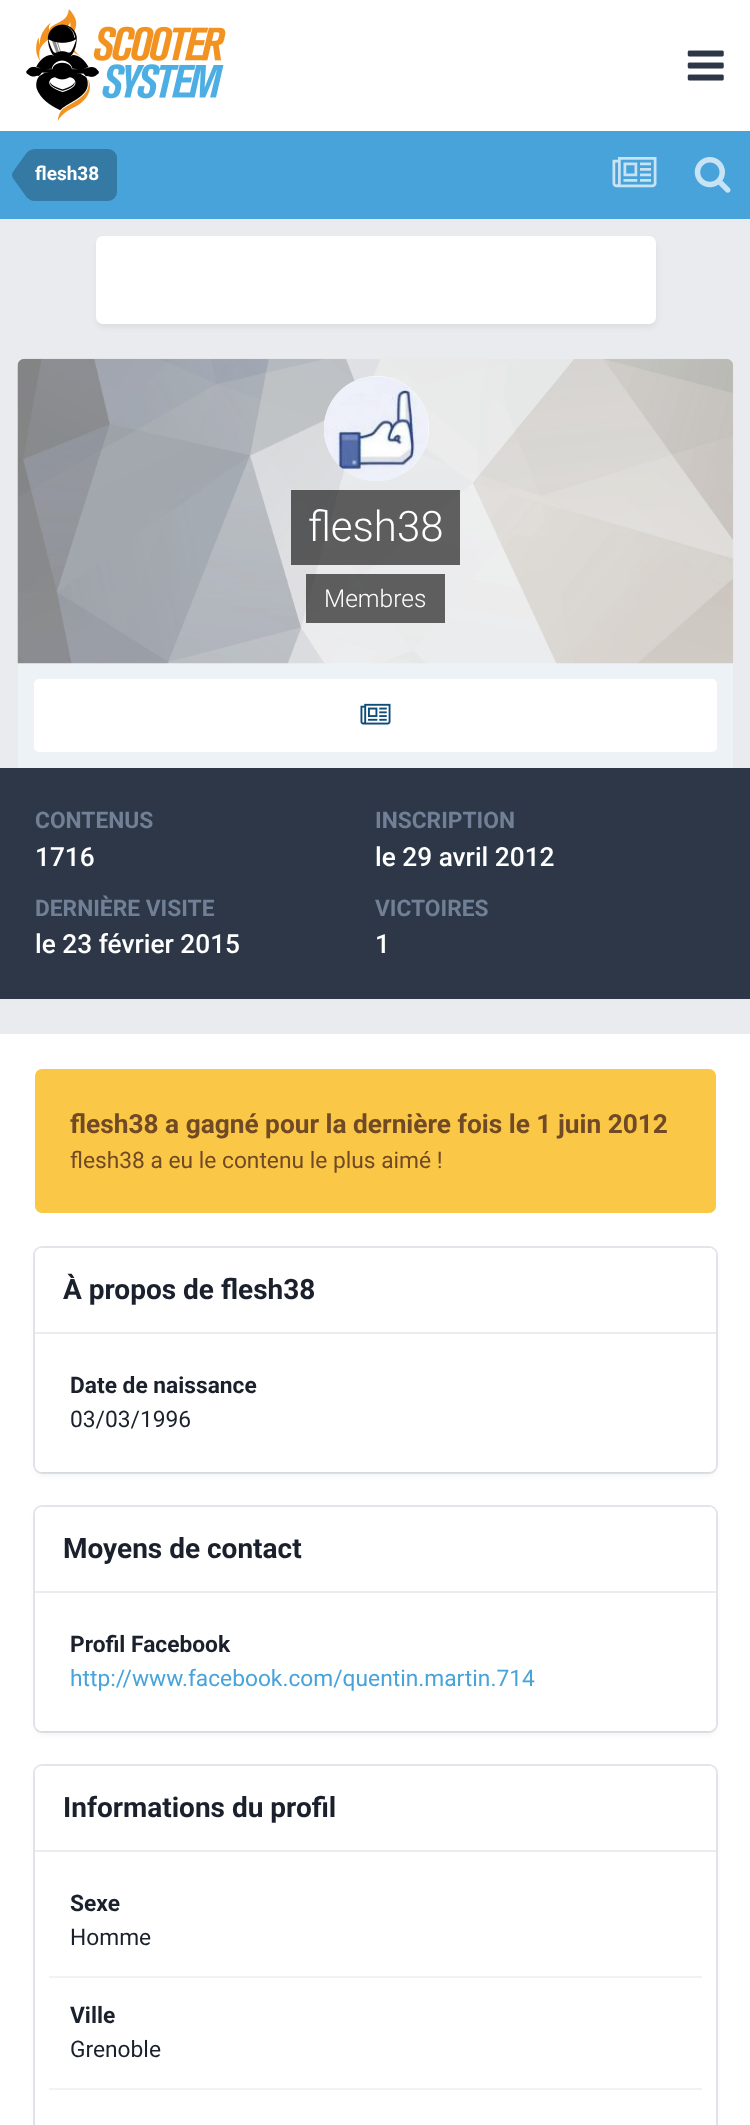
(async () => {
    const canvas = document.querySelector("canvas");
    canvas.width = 750;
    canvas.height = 2125;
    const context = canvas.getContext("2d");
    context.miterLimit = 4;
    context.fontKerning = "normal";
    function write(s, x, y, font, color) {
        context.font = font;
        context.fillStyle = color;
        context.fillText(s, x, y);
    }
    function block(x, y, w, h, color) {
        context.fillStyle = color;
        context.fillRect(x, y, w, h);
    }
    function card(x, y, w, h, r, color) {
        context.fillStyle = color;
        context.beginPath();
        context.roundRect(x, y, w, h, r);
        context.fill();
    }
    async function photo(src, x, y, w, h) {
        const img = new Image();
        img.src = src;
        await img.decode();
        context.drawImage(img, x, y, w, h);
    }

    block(0, 0, 750, 2125, "rgb(255, 255, 255)");
    await photo("media/1.png", 26, 9, 200, 113);
    await photo("media/2.png", 687, 50, 37, 31);
    block(0, 131, 750, 88, "rgb(71, 163, 218)");
    context.fillStyle = "rgb(53, 122, 164)";
    context.beginPath();
    context.roundRect(35, 149, 82, 52, [0, 9, 9, 0]);
    context.fill();
    context.beginPath();
    context.moveTo(35, 175);
    context.lineTo(35, 201);
    context.bezierCurveTo(31, 201, 27.5, 199, 25, 195);
    context.lineTo(12.5, 177.5);
    context.lineTo(12, 175);
    context.closePath();
    context.moveTo(35, 175);
    context.lineTo(12, 175);
    context.lineTo(12.5, 172.5);
    context.lineTo(25, 155);
    context.bezierCurveTo(27.5, 151, 31, 149, 35, 149);
    context.closePath();
    context.fill();
    write("flesh38", 35, 180, "bold 19px Roboto", "rgb(255, 255, 255)");
    await photo("media/3.png", 612, 157, 45, 31);
    await photo("media/4.png", 694, 157, 37, 36);
    block(0, 219, 750, 815, "rgb(233, 235, 238)");
    context.fillStyle = "rgba(45, 55, 72, 0.1)";
    context.filter = "blur(3.5px)";
    context.beginPath();
    context.roundRect(98, 242, 557, 84, 5);
    context.fill();
    context.filter = "none";
    card(96, 236, 560, 88, 7, "rgb(255, 255, 255)");
    block(18, 663, 715, 105, "rgb(237, 242, 247)");
    await photo("media/5.png", 17, 358, 717, 306);
    context.fillStyle = "rgb(255, 255, 255)";
    context.beginPath();
    context.arc(376.5, 428.5, 52.5, 0, Math.PI * 2);
    context.fill();
    await photo("media/6.png", 324, 376, 105, 105);
    block(291, 490, 169, 75, "rgba(0, 0, 0, 0.6)");
    write("flesh38", 308, 541, "300 42px Roboto", "rgb(255, 255, 255)");
    block(306, 574, 139, 49, "rgba(0, 0, 0, 0.6)");
    write("Membres", 324, 607, "300 24.5px Roboto", "rgb(255, 255, 255)");
    card(32, 677, 687, 77, 7, "rgb(255, 255, 255)");
    context.beginPath();
    context.roundRect(33, 678, 685, 75, 6);
    context.strokeStyle = "rgba(14, 76, 121, 0.07)";
    context.lineWidth = 2;
    context.stroke();
    await photo("media/7.png", 360, 703, 31, 22);
    block(0, 768, 750, 231, "rgb(45, 55, 72)");
    write("CONTENUS", 35, 828, "bold 22.75px Roboto", "rgb(113, 128, 150)");
    write("1716", 35, 866, "500 26.25px Roboto", "rgb(255, 255, 255)");
    write("INSCRIPTION", 375, 828, "bold 22.75px Roboto", "rgb(113, 128, 150)");
    write("le 29 avril 2012", 375, 866, "500 26.25px Roboto", "rgb(255, 255, 255)");
    write("DERNIÈRE VISITE", 35, 916, "bold 22.75px Roboto", "rgb(113, 128, 150)");
    write("le 23 février 2015", 35, 953, "500 26.25px Roboto", "rgb(255, 255, 255)");
    write("VICTOIRES", 375, 916, "bold 22.75px Roboto", "rgb(113, 128, 150)");
    write("1", 375, 953, "500 26.25px Roboto", "rgb(255, 255, 255)");
    card(35, 1069, 681, 144, 7, "rgb(250, 199, 70)");
    write("flesh38 a gagné pour la dernière fois le 1 juin 2012", 70, 1133, "bold 26.25px Roboto", "rgb(112, 73, 38)");
    write("flesh38 a eu le contenu le plus aimé !", 70, 1168, "22.75px Roboto", "rgb(112, 73, 38)");
    context.fillStyle = "rgba(45, 55, 72, 0.1)";
    context.filter = "blur(3.5px)";
    context.beginPath();
    context.roundRect(37, 1253, 677, 221, 5);
    context.fill();
    context.filter = "none";
    context.beginPath();
    context.roundRect(34, 1247, 683, 226, 8);
    context.strokeStyle = "rgba(113, 128, 150, 0.2)";
    context.stroke();
    card(35, 1248, 681, 224, 7, "rgb(255, 255, 255)");
    context.beginPath();
    context.roundRect(35, 1248, 681, 86, [7, 7, 0, 0]);
    context.fill();
    block(35, 1332, 681, 2, "rgb(234, 236, 239)");
    write("À propos de flesh38", 63, 1299, "bold 28px Roboto", "rgb(26, 32, 44)");
    write("Date de naissance", 70, 1393, "bold 22.75px Roboto", "rgb(26, 32, 44)");
    write("03/03/1996", 70, 1427, "22.75px Roboto", "rgb(26, 32, 44)");
    context.fillStyle = "rgba(45, 55, 72, 0.1)";
    context.filter = "blur(3.5px)";
    context.beginPath();
    context.roundRect(37, 1512, 677, 221, 5);
    context.fill();
    context.filter = "none";
    context.beginPath();
    context.roundRect(34, 1506, 683, 226, 8);
    context.stroke();
    card(35, 1507, 681, 224, 7, "rgb(255, 255, 255)");
    context.beginPath();
    context.roundRect(35, 1507, 681, 86, [7, 7, 0, 0]);
    context.fill();
    block(35, 1591, 681, 2, "rgb(234, 236, 239)");
    write("Moyens de contact", 63, 1558, "bold 28px Roboto", "rgb(26, 32, 44)");
    write("Profil Facebook", 70, 1652, "bold 22.75px Roboto", "rgb(26, 32, 44)");
    write("http://www.facebook.com/quentin.martin.714", 70, 1686, "22.75px Roboto", "rgb(71, 163, 218)");
    context.fillStyle = "rgba(45, 55, 72, 0.1)";
    context.filter = "blur(3.5px)";
    context.beginPath();
    context.roundRect(37, 1771, 677, 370, 5);
    context.fill();
    context.filter = "none";
    context.beginPath();
    context.roundRect(34, 1765, 683, 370, 8);
    context.stroke();
    card(35, 1766, 681, 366, 7, "rgb(255, 255, 255)");
    context.beginPath();
    context.roundRect(35, 1766, 681, 86, [7, 7, 0, 0]);
    context.fill();
    block(35, 1850, 681, 2, "rgb(234, 236, 239)");
    write("Informations du profil", 63, 1817, "bold 28px Roboto", "rgb(26, 32, 44)");
    block(49, 1976, 653, 2, "rgb(241, 242, 245)");
    write("Sexe", 70, 1911, "bold 22.75px Roboto", "rgb(26, 32, 44)");
    write("Homme", 70, 1945, "22.75px Roboto", "rgb(26, 32, 44)");
    block(49, 2088, 653, 2, "rgb(241, 242, 245)");
    write("Ville", 70, 2023, "bold 22.75px Roboto", "rgb(26, 32, 44)");
    write("Grenoble", 70, 2057, "22.75px Roboto", "rgb(26, 32, 44)");
})();
